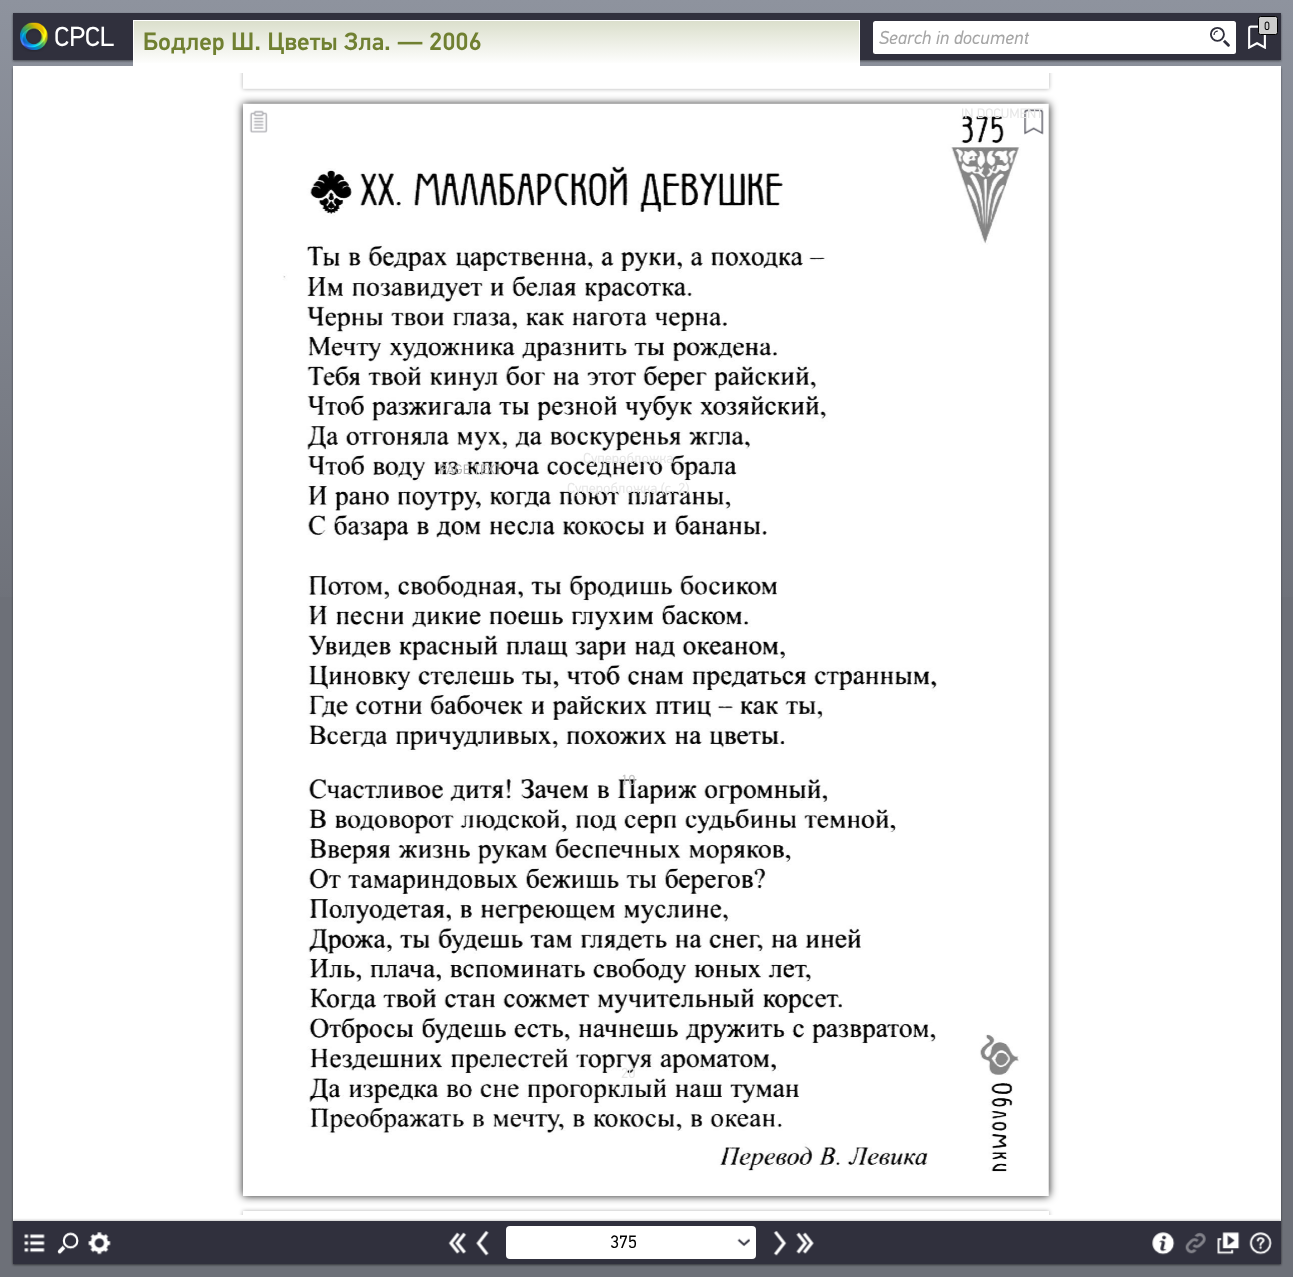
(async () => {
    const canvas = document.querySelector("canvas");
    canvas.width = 1293;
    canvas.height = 1277;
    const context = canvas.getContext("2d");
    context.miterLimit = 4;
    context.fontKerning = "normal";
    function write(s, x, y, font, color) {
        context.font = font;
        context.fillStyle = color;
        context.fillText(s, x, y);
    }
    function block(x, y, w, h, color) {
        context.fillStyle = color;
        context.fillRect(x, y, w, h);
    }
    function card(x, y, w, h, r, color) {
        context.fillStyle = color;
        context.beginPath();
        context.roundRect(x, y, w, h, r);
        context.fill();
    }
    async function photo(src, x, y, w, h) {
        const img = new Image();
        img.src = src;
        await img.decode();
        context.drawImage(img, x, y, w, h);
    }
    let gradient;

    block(0, 0, 1293, 1277, "rgb(109, 112, 120)");
    gradient = context.createLinearGradient(647, 0, 647, 639);
    gradient.addColorStop(0, "rgb(142, 147, 158)");
    gradient.addColorStop(1, "rgb(109, 112, 120)");
    context.fillStyle = gradient;
    context.fillRect(0, 0, 1293, 597);
    context.fillStyle = "rgba(0, 0, 0, 0.5)";
    context.filter = "blur(1px)";
    context.beginPath();
    context.rect(13, 14, 1268, 47);
    context.fill();
    context.filter = "none";
    context.filter = "blur(1px)";
    context.beginPath();
    context.rect(13, 68, 1268, 1197);
    context.fill();
    context.filter = "none";
    block(13, 66, 1268, 1155, "rgb(255, 255, 255)");
    context.save();
    context.beginPath();
    context.rect(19, 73, 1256, 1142);
    context.clip();
    context.fillStyle = "rgba(0, 0, 0, 0.3)";
    context.filter = "blur(2px)";
    context.beginPath();
    context.rect(243, -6, 806, 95);
    context.fill();
    context.filter = "none";
    context.restore();
    block(13, 13, 1268, 47, "rgb(48, 48, 61)");
    await photo("media/1.png", 20, 22, 28, 30);
    write("CPCL", 54, 46, "27.5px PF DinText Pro", "rgb(255, 255, 255)");
    block(133, 20, 727, 46, "rgb(255, 255, 255)");
    gradient = context.createLinearGradient(496, 21, 496, 65);
    gradient.addColorStop(0, "rgb(219, 223, 204)");
    gradient.addColorStop(1, "rgb(255, 255, 255)");
    context.fillStyle = gradient;
    context.fillRect(134, 21, 725, 42);
    write("Бодлер Ш. Цветы Зла. — 2006", 143, 50, "500 25px PF DinText Pro", "rgb(112, 128, 49)");
    card(873, 21, 363, 33, 2.5, "rgb(255, 255, 255)");
    write("Search in document", 879, 44, "italic 18.75px PF DinText Pro", "rgb(166, 166, 166)");
    await photo("media/2.png", 1210, 27, 20, 20);
    await photo("media/3.png", 1248, 25, 18, 24);
    context.fillStyle = "rgb(204, 204, 204)";
    context.beginPath();
    context.roundRect(1258.5, 16.5, 19, 18, 2);
    context.fill();
    context.strokeStyle = "rgb(0, 0, 0)";
    context.stroke();
    write("0", 1264, 30, "12px PF DinText Pro", "rgb(0, 0, 0)");
    block(243, 88, 806, 1, "rgb(248, 248, 248)");
    block(243, 73, 806, 15, "rgb(255, 255, 255)");
    context.fillStyle = "rgba(0, 0, 0, 0.9)";
    context.filter = "blur(4px)";
    context.beginPath();
    context.rect(243, 104, 806, 1092);
    context.fill();
    context.filter = "none";
    await photo("media/4.png", 243, 103, 807, 1093);
    await photo("media/5.png", 249, 110, 19, 23);
    await photo("media/6.png", 1024, 108, 20, 27);
    context.save();
    context.beginPath();
    context.rect(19, 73, 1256, 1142);
    context.clip();
    context.fillStyle = "rgba(0, 0, 0, 0.3)";
    context.filter = "blur(2px)";
    context.beginPath();
    context.rect(243, 1211, 806, 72);
    context.fill();
    context.filter = "none";
    context.restore();
    block(243, 1211, 806, 4, "rgb(255, 255, 255)");
    context.fillStyle = "rgba(0, 0, 0, 0.2)";
    context.filter = "blur(1px)";
    context.beginPath();
    context.rect(13, 1220, 1268, 43);
    context.fill();
    context.filter = "none";
    block(13, 1221, 1268, 43, "rgb(48, 48, 61)");
    await photo("media/7.png", 24, 1234, 21, 19);
    await photo("media/8.png", 57, 1232, 22, 23);
    await photo("media/9.png", 88, 1232, 23, 23);
    await photo("media/10.png", 448, 1232, 19, 22);
    await photo("media/11.png", 476, 1230, 13, 26);
    card(506, 1226, 250, 33, 4, "rgb(255, 255, 255)");
    write("Суперобложка", 583, 463, "14.6px PF DinText Pro", "rgb(231, 231, 231)");
    write("Суперобложка (с. 2)", 567, 493, "14.6px PF DinText Pro", "rgb(231, 231, 231)");
    write("10", 621, 785, "14.6px PF DinText Pro", "rgb(197, 197, 197)");
    write("20", 621, 1078, "14.6px PF DinText Pro", "rgb(231, 231, 231)");
    write("375", 610, 1248, "18px PF DinText Pro", "rgb(0, 0, 0)");
    await photo("media/12.png", 737, 1238, 13, 9);
    await photo("media/13.png", 773, 1231, 14, 25);
    await photo("media/14.png", 796, 1232, 18, 22);
    await photo("media/15.png", 1152, 1232, 23, 23);
    await photo("media/16.png", 1185, 1232, 21, 22);
    await photo("media/17.png", 1217, 1232, 23, 23);
    await photo("media/18.png", 1249, 1232, 23, 23);
    write("IN DOCUMENT", 961, 118, "13.75px PF DinText Pro", "rgb(231, 231, 231)");
    write("PAGE TEXT", 439, 474, "13.75px PF DinText Pro", "rgb(180, 180, 180)");
})();
